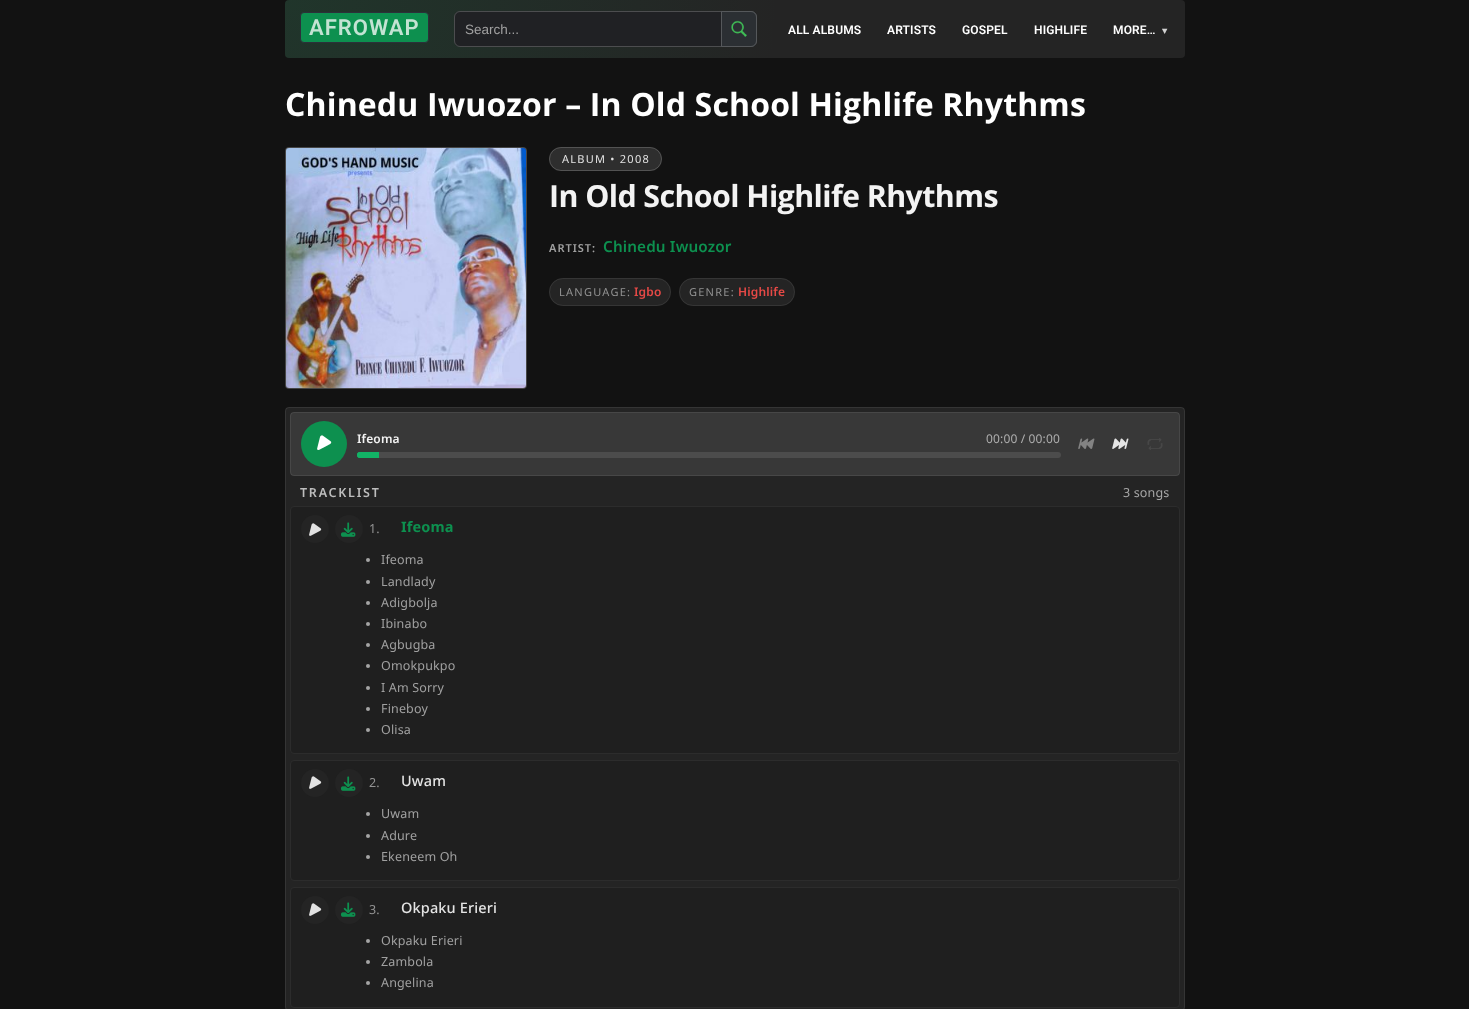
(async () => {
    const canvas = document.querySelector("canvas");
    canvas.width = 1469;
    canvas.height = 1009;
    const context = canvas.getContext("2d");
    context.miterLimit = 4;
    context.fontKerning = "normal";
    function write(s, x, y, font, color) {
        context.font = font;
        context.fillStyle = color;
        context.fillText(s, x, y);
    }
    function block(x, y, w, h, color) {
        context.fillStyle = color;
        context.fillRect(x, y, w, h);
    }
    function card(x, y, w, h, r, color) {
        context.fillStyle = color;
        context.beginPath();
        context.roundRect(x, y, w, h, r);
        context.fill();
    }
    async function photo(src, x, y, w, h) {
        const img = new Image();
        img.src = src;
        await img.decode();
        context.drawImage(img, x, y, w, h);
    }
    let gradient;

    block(0, 0, 1469, 1009, "rgb(18, 18, 18)");
    card(285, 0, 900, 58, 4, "rgb(36, 36, 36)");
    gradient = context.createRadialGradient(285, 0, 0, 285, 0, 902);
    gradient.addColorStop(0, "rgba(13, 144, 79, 0.16)");
    gradient.addColorStop(0.55, "rgba(13, 144, 79, 0)");
    context.fillStyle = gradient;
    context.beginPath();
    context.roundRect(285, 0, 900, 58, 4);
    context.fill();
    context.fillStyle = "rgb(13, 144, 79)";
    context.beginPath();
    context.roundRect(300.5, 12.5, 128, 30, 3.5);
    context.fill();
    context.strokeStyle = "rgb(44, 48, 58)";
    context.stroke();
    context.letterSpacing = "1px";
    write("AFROWAP", 309, 35, "600 22px Roboto", "rgb(195, 227, 211)");
    card(454, 11, 303, 36, 6, "rgb(32, 33, 36)");
    context.beginPath();
    context.roundRect(454.5, 11.5, 302, 35, 5.5);
    context.strokeStyle = "rgba(255, 255, 255, 0.2)";
    context.stroke();
    context.letterSpacing = "0px";
    write("Search...", 465, 34, "13.5px Liberation Sans", "rgb(160, 160, 160)");
    context.fillStyle = "rgb(43, 47, 51)";
    context.beginPath();
    context.roundRect(721, 11, 36, 36, [0, 6, 6, 0]);
    context.fill();
    await photo("media/1.png", 731, 20, 16, 17);
    context.beginPath();
    context.roundRect(721.5, 11.5, 35, 35, [0, 5.5, 5.5, 0]);
    context.stroke();
    context.letterSpacing = "0.15px";
    write("ALL ALBUMS", 788, 34, "600 12px Roboto", "rgb(255, 255, 255)");
    write("ARTISTS", 887, 34, "600 12px Roboto", "rgb(255, 255, 255)");
    write("GOSPEL", 962, 34, "600 12px Roboto", "rgb(255, 255, 255)");
    write("HIGHLIFE", 1034, 34, "600 12px Roboto", "rgb(255, 255, 255)");
    write("MORE…", 1113, 34, "600 12px Roboto", "rgb(255, 255, 255)");
    write("▾", 1162, 34, "bold 10px DejaVu Sans", "rgb(211, 211, 211)");
    write("Chinedu Iwuozor – In Old School Highlife Rhythms", 285, 116, "bold 32px Open Sans", "rgb(255, 255, 255)");
    card(285, 147, 242, 242, 4, "rgb(36, 36, 36)");
    card(285, 147, 242, 242, 4, "rgba(255, 255, 255, 0.09)");
    context.beginPath();
    context.roundRect(285.5, 147.5, 241, 241, 3.5);
    context.strokeStyle = "rgba(255, 255, 255, 0.08)";
    context.stroke();
    await photo("media/2.png", 286, 148, 240, 240);
    card(549, 147, 113, 24, 12, "rgb(46, 46, 46)");
    context.beginPath();
    context.roundRect(549.5, 147.5, 112, 23, 11.5);
    context.strokeStyle = "rgba(255, 255, 255, 0.18)";
    context.stroke();
    context.letterSpacing = "1.25px";
    write("ALBUM • 2008", 562, 163, "11px Noto Sans", "rgb(228, 228, 228)");
    context.letterSpacing = "-0.6px";
    write("In Old School Highlife Rhythms", 549, 207, "bold 30.4px Open Sans", "rgb(243, 243, 243)");
    context.letterSpacing = "1px";
    write("ARTIST:", 549, 252, "600 11px Noto Sans", "rgb(160, 160, 160)");
    context.letterSpacing = "0.15px";
    write("Chinedu Iwuozor", 603, 252, "600 15.25px Noto Sans", "rgb(13, 144, 79)");
    card(549, 278, 122, 28, 14, "rgb(36, 36, 36)");
    context.beginPath();
    context.roundRect(549.5, 278.5, 121, 27, 13.5);
    context.strokeStyle = "rgba(255, 255, 255, 0.08)";
    context.stroke();
    context.letterSpacing = "1.25px";
    write("LANGUAGE:", 559, 296, "11px Noto Sans", "rgb(146, 146, 146)");
    context.letterSpacing = "0.15px";
    write("Igbo", 634, 296, "600 12px Noto Sans", "rgb(230, 73, 70)");
    card(679, 278, 116, 28, 14, "rgb(36, 36, 36)");
    context.beginPath();
    context.roundRect(679.5, 278.5, 115, 27, 13.5);
    context.stroke();
    context.letterSpacing = "1.25px";
    write("GENRE:", 689, 296, "11px Noto Sans", "rgb(146, 146, 146)");
    context.letterSpacing = "0.15px";
    write("Highlife", 738, 296, "600 12px Noto Sans", "rgb(230, 73, 70)");
    card(285, 407, 900, 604, 4, "rgb(36, 36, 36)");
    context.beginPath();
    context.roundRect(285.5, 407.5, 899, 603, 3.5);
    context.stroke();
    card(290, 412, 890, 64, 4, "rgb(56, 56, 56)");
    context.beginPath();
    context.roundRect(290.5, 412.5, 889, 63, 3.5);
    context.stroke();
    context.fillStyle = "rgb(13, 144, 79)";
    context.beginPath();
    context.arc(324, 444, 23, 0, Math.PI * 2);
    context.fill();
    await photo("media/3.png", 317, 435, 15, 15);
    write("Ifeoma", 357, 443, "600 12px Noto Sans", "rgb(243, 243, 243)");
    write("00:00 / 00:00", 986, 443, "12px Noto Sans", "rgb(175, 175, 175)");
    card(357, 452, 704, 6, 3, "rgb(76, 76, 76)");
    context.fillStyle = "rgb(18, 179, 102)";
    context.beginPath();
    context.roundRect(357, 452, 22, 6, [3, 0, 0, 3]);
    context.fill();
    context.beginPath();
    context.moveTo(379, 452);
    context.lineTo(379, 458);
    context.lineTo(376, 458);
    context.lineTo(376, 452);
    context.closePath();
    context.moveTo(360, 452);
    context.bezierCurveTo(356, 452, 356, 458, 360, 458);
    context.closePath();
    context.fill("evenodd");
    await photo("media/4.png", 1078, 438, 17, 11);
    await photo("media/5.png", 1112, 438, 17, 11);
    await photo("media/6.png", 1147, 438, 16, 12);
    context.letterSpacing = "1.75px";
    write("TRACKLIST", 300, 497, "600 12.5px Noto Sans", "rgb(189, 189, 189)");
    context.letterSpacing = "0.15px";
    write("3 songs", 1123, 497, "12.5px Noto Sans", "rgb(167, 167, 167)");
    context.fillStyle = "rgb(31, 31, 31)";
    context.beginPath();
    context.roundRect(290.5, 506.5, 889, 247, 3.5);
    context.fill();
    context.strokeStyle = "rgb(44, 44, 44)";
    context.stroke();
    context.fillStyle = "rgb(36, 36, 36)";
    context.beginPath();
    context.arc(315, 529, 14, 0, Math.PI * 2);
    context.fill();
    await photo("media/7.png", 309, 523, 13, 13);
    context.beginPath();
    context.arc(349, 529, 14, 0, Math.PI * 2);
    context.fill();
    await photo("media/8.png", 341, 522, 15, 15);
    write("1.", 369, 533, "12.5px Noto Sans", "rgb(146, 146, 146)");
    write("Ifeoma", 401, 532, "bold 14.5px Noto Sans", "rgb(13, 144, 79)");
    context.fillStyle = "rgb(165, 165, 165)";
    context.beginPath();
    context.arc(368, 560, 2, 0, Math.PI * 2);
    context.fill();
    write("Ifeoma", 381, 564, "12.5px Noto Sans", "rgb(160, 160, 160)");
    context.fillStyle = "rgb(165, 165, 165)";
    context.beginPath();
    context.arc(368, 582, 2, 0, Math.PI * 2);
    context.fill();
    write("Landlady", 381, 586, "12.5px Noto Sans", "rgb(160, 160, 160)");
    context.fillStyle = "rgb(165, 165, 165)";
    context.beginPath();
    context.arc(368, 603, 2, 0, Math.PI * 2);
    context.fill();
    write("Adigbolja", 381, 607, "12.5px Noto Sans", "rgb(160, 160, 160)");
    context.fillStyle = "rgb(165, 165, 165)";
    context.beginPath();
    context.arc(368, 624, 2, 0, Math.PI * 2);
    context.fill();
    write("Ibinabo", 381, 628, "12.5px Noto Sans", "rgb(160, 160, 160)");
    context.fillStyle = "rgb(165, 165, 165)";
    context.beginPath();
    context.arc(368, 645, 2, 0, Math.PI * 2);
    context.fill();
    write("Agbugba", 381, 649, "12.5px Noto Sans", "rgb(160, 160, 160)");
    context.fillStyle = "rgb(165, 165, 165)";
    context.beginPath();
    context.arc(368, 666, 2, 0, Math.PI * 2);
    context.fill();
    write("Omokpukpo", 381, 670, "12.5px Noto Sans", "rgb(160, 160, 160)");
    context.fillStyle = "rgb(165, 165, 165)";
    context.beginPath();
    context.arc(368, 688, 2, 0, Math.PI * 2);
    context.fill();
    write("I Am Sorry", 381, 692, "12.5px Noto Sans", "rgb(160, 160, 160)");
    context.fillStyle = "rgb(165, 165, 165)";
    context.beginPath();
    context.arc(368, 709, 2, 0, Math.PI * 2);
    context.fill();
    write("Fineboy", 381, 713, "12.5px Noto Sans", "rgb(160, 160, 160)");
    context.fillStyle = "rgb(165, 165, 165)";
    context.beginPath();
    context.arc(368, 730, 2, 0, Math.PI * 2);
    context.fill();
    write("Olisa", 381, 734, "12.5px Noto Sans", "rgb(160, 160, 160)");
    context.fillStyle = "rgb(31, 31, 31)";
    context.beginPath();
    context.roundRect(290.5, 760.5, 889, 120, 3.5);
    context.fill();
    context.stroke();
    context.fillStyle = "rgb(36, 36, 36)";
    context.beginPath();
    context.arc(315, 783, 14, 0, Math.PI * 2);
    context.fill();
    await photo("media/7.png", 309, 776, 13, 13);
    context.beginPath();
    context.arc(349, 783, 14, 0, Math.PI * 2);
    context.fill();
    await photo("media/8.png", 341, 776, 15, 15);
    write("2.", 369, 787, "12.5px Noto Sans", "rgb(146, 146, 146)");
    write("Uwam", 401, 786, "500 14.5px Noto Sans", "rgb(228, 228, 228)");
    context.fillStyle = "rgb(165, 165, 165)";
    context.beginPath();
    context.arc(368, 814, 2, 0, Math.PI * 2);
    context.fill();
    write("Uwam", 381, 818, "12.5px Noto Sans", "rgb(160, 160, 160)");
    context.fillStyle = "rgb(165, 165, 165)";
    context.beginPath();
    context.arc(368, 836, 2, 0, Math.PI * 2);
    context.fill();
    write("Adure", 381, 840, "12.5px Noto Sans", "rgb(160, 160, 160)");
    context.fillStyle = "rgb(165, 165, 165)";
    context.beginPath();
    context.arc(368, 857, 2, 0, Math.PI * 2);
    context.fill();
    write("Ekeneem Oh", 381, 861, "12.5px Noto Sans", "rgb(160, 160, 160)");
    context.fillStyle = "rgb(31, 31, 31)";
    context.beginPath();
    context.roundRect(290.5, 887.5, 889, 120, 3.5);
    context.fill();
    context.stroke();
    context.fillStyle = "rgb(36, 36, 36)";
    context.beginPath();
    context.arc(315, 910, 14, 0, Math.PI * 2);
    context.fill();
    await photo("media/7.png", 309, 903, 13, 13);
    context.beginPath();
    context.arc(349, 910, 14, 0, Math.PI * 2);
    context.fill();
    await photo("media/8.png", 341, 902, 15, 15);
    write("3.", 369, 914, "12.5px Noto Sans", "rgb(146, 146, 146)");
    write("Okpaku Erieri", 401, 913, "500 14.5px Noto Sans", "rgb(228, 228, 228)");
    context.fillStyle = "rgb(165, 165, 165)";
    context.beginPath();
    context.arc(368, 941, 2, 0, Math.PI * 2);
    context.fill();
    write("Okpaku Erieri", 381, 945, "12.5px Noto Sans", "rgb(160, 160, 160)");
    context.fillStyle = "rgb(165, 165, 165)";
    context.beginPath();
    context.arc(368, 962, 2, 0, Math.PI * 2);
    context.fill();
    write("Zambola", 381, 966, "12.5px Noto Sans", "rgb(160, 160, 160)");
    context.fillStyle = "rgb(165, 165, 165)";
    context.beginPath();
    context.arc(368, 983, 2, 0, Math.PI * 2);
    context.fill();
    write("Angelina", 381, 987, "12.5px Noto Sans", "rgb(160, 160, 160)");
})();
